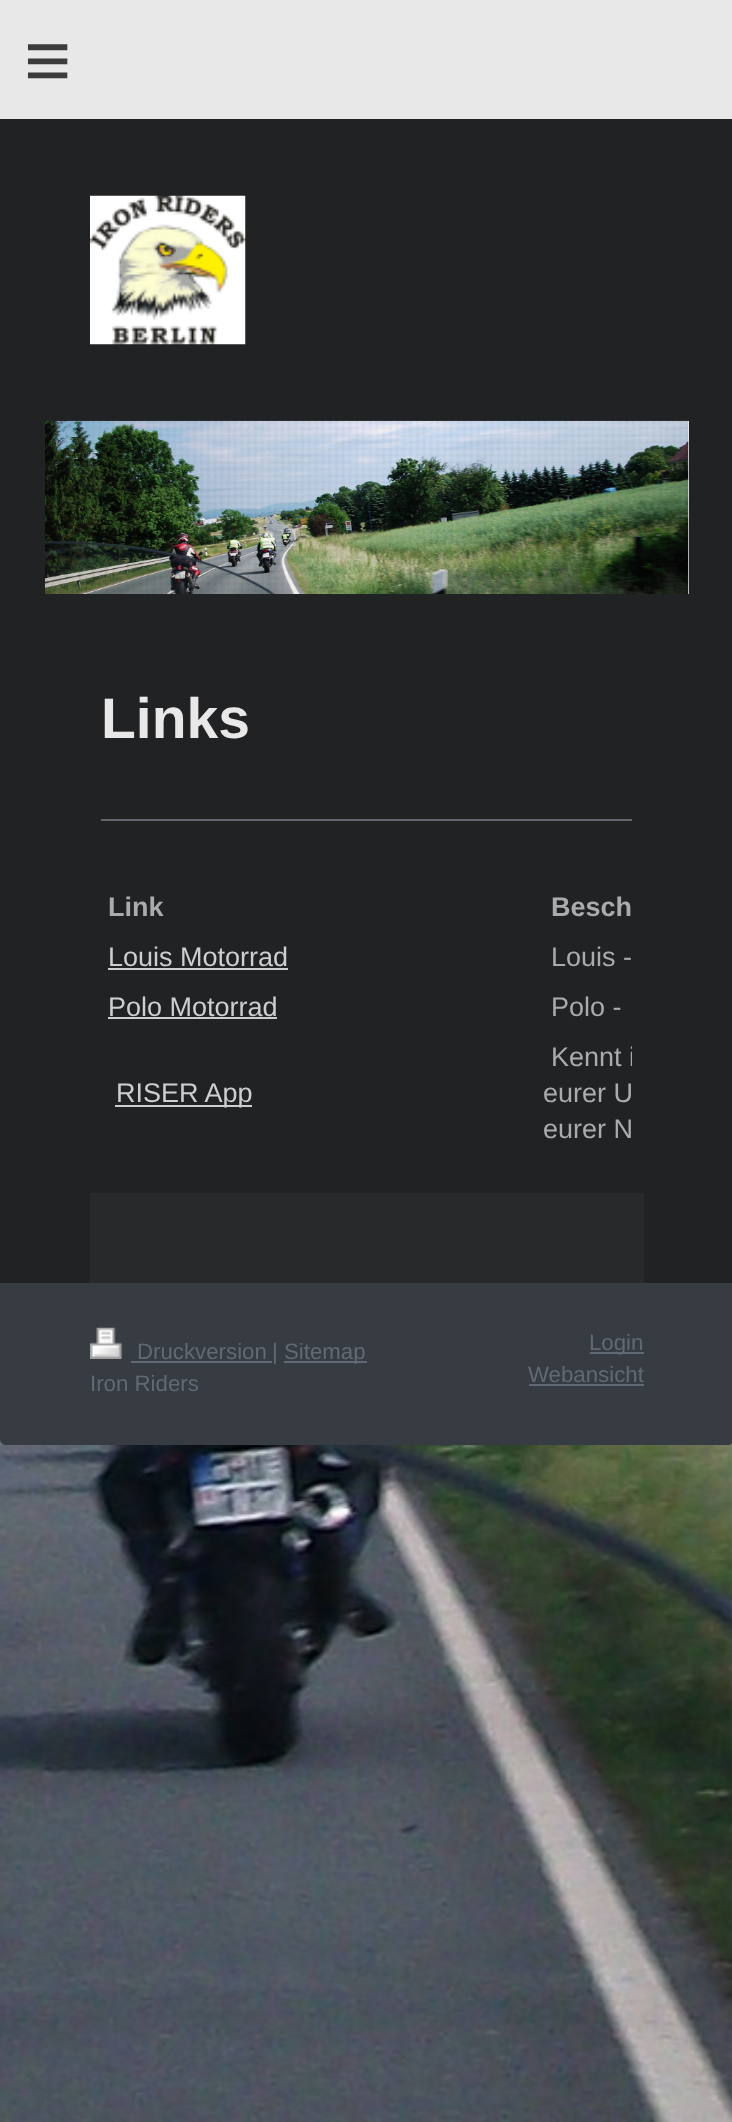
(async () => {
    const canvas = document.querySelector("canvas");
    canvas.width = 732;
    canvas.height = 2122;
    const context = canvas.getContext("2d");
    context.miterLimit = 4;
    context.fontKerning = "normal";
    function write(s, x, y, font, color) {
        context.font = font;
        context.fillStyle = color;
        context.fillText(s, x, y);
    }
    function block(x, y, w, h, color) {
        context.fillStyle = color;
        context.fillRect(x, y, w, h);
    }
    async function photo(src, x, y, w, h) {
        const img = new Image();
        img.src = src;
        await img.decode();
        context.drawImage(img, x, y, w, h);
    }

    block(0, 0, 732, 2122, "rgb(255, 255, 255)");
    await photo("media/1.png", 0, 1438, 732, 684);
    context.fillStyle = "rgb(33, 34, 36)";
    context.beginPath();
    context.moveTo(0, 0);
    context.lineTo(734, 0);
    context.lineTo(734, 1438);
    context.bezierCurveTo(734, 1442, 731, 1445, 727, 1445);
    context.lineTo(7, 1445);
    context.bezierCurveTo(3, 1445, 0, 1442, 0, 1438);
    context.closePath();
    context.fill();
    block(0, 0, 732, 119, "rgb(232, 232, 232)");
    context.letterSpacing = "24px";
    write("≡", 24, 88, "81px Liberation Sans", "rgb(60, 60, 60)");
    await photo("media/2.png", 90, 195, 156, 150);
    block(688, 421, 1, 173, "rgb(238, 238, 238)");
    await photo("media/3.png", 45, 420, 644, 174);
    await photo("media/4.png", 45, 421, 643, 173);
    context.letterSpacing = "0px";
    write("Links", 101, 738, "bold 57px Liberation Sans", "rgb(232, 232, 232)");
    block(101, 819, 531, 2, "rgb(99, 102, 108)");
    write("Link", 108, 916, "bold 27px Liberation Sans", "rgb(169, 171, 175)");
    write("Besch", 551, 916, "bold 27px Liberation Sans", "rgb(169, 171, 175)");
    write("Louis Motorrad", 108, 966, "27px Liberation Sans", "rgb(205, 206, 208)");
    block(108, 968, 180, 2, "rgb(205, 206, 208)");
    write("Louis -", 551, 966, "27px Liberation Sans", "rgb(169, 171, 175)");
    write("Polo Motorrad", 108, 1016, "27px Liberation Sans", "rgb(205, 206, 208)");
    block(108, 1017, 169, 2, "rgb(205, 206, 208)");
    write("Polo -", 551, 1016, "27px Liberation Sans", "rgb(169, 171, 175)");
    block(115, 1105, 137, 2, "rgb(205, 206, 208)");
    write("RISER App", 116, 1102, "27px Liberation Sans", "rgb(205, 206, 208)");
    context.save();
    context.beginPath();
    context.rect(101, 882, 531, 272);
    context.clip();
    write("Kennt i", 551, 1066, "27px Liberation Sans", "rgb(169, 171, 175)");
    context.restore();
    write("eurer U", 543, 1102, "27px Liberation Sans", "rgb(169, 171, 175)");
    write("eurer N", 543, 1138, "27px Liberation Sans", "rgb(169, 171, 175)");
    block(90, 1193, 554, 90, "rgb(40, 41, 43)");
    context.fillStyle = "rgb(55, 60, 66)";
    context.beginPath();
    context.moveTo(0, 1283);
    context.lineTo(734, 1283);
    context.lineTo(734, 1438);
    context.bezierCurveTo(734, 1442, 731, 1445, 727, 1445);
    context.lineTo(7, 1445);
    context.bezierCurveTo(3, 1445, 0, 1442, 0, 1438);
    context.closePath();
    context.fill();
    await photo("media/5.png", 90, 1327, 33, 32);
    write("Druckversion", 137, 1359, "22.25px Liberation Sans", "rgb(97, 106, 116)");
    block(131, 1361, 141, 2, "rgb(97, 106, 116)");
    write("|", 272, 1359, "22.25px Liberation Sans", "rgb(97, 106, 116)");
    block(284, 1361, 83, 2, "rgb(97, 106, 116)");
    write("Sitemap", 284, 1359, "22.25px Liberation Sans", "rgb(97, 106, 116)");
    write("Iron Riders", 90, 1391, "22.25px Liberation Sans", "rgb(97, 106, 116)");
    block(590, 1352, 54, 2, "rgb(97, 106, 116)");
    write("Login", 589, 1350, "22.25px Liberation Sans", "rgb(97, 106, 116)");
    write("Webansicht", 528, 1382, "22.25px Liberation Sans", "rgb(97, 106, 116)");
    block(529, 1384, 115, 2, "rgb(97, 106, 116)");
})();
